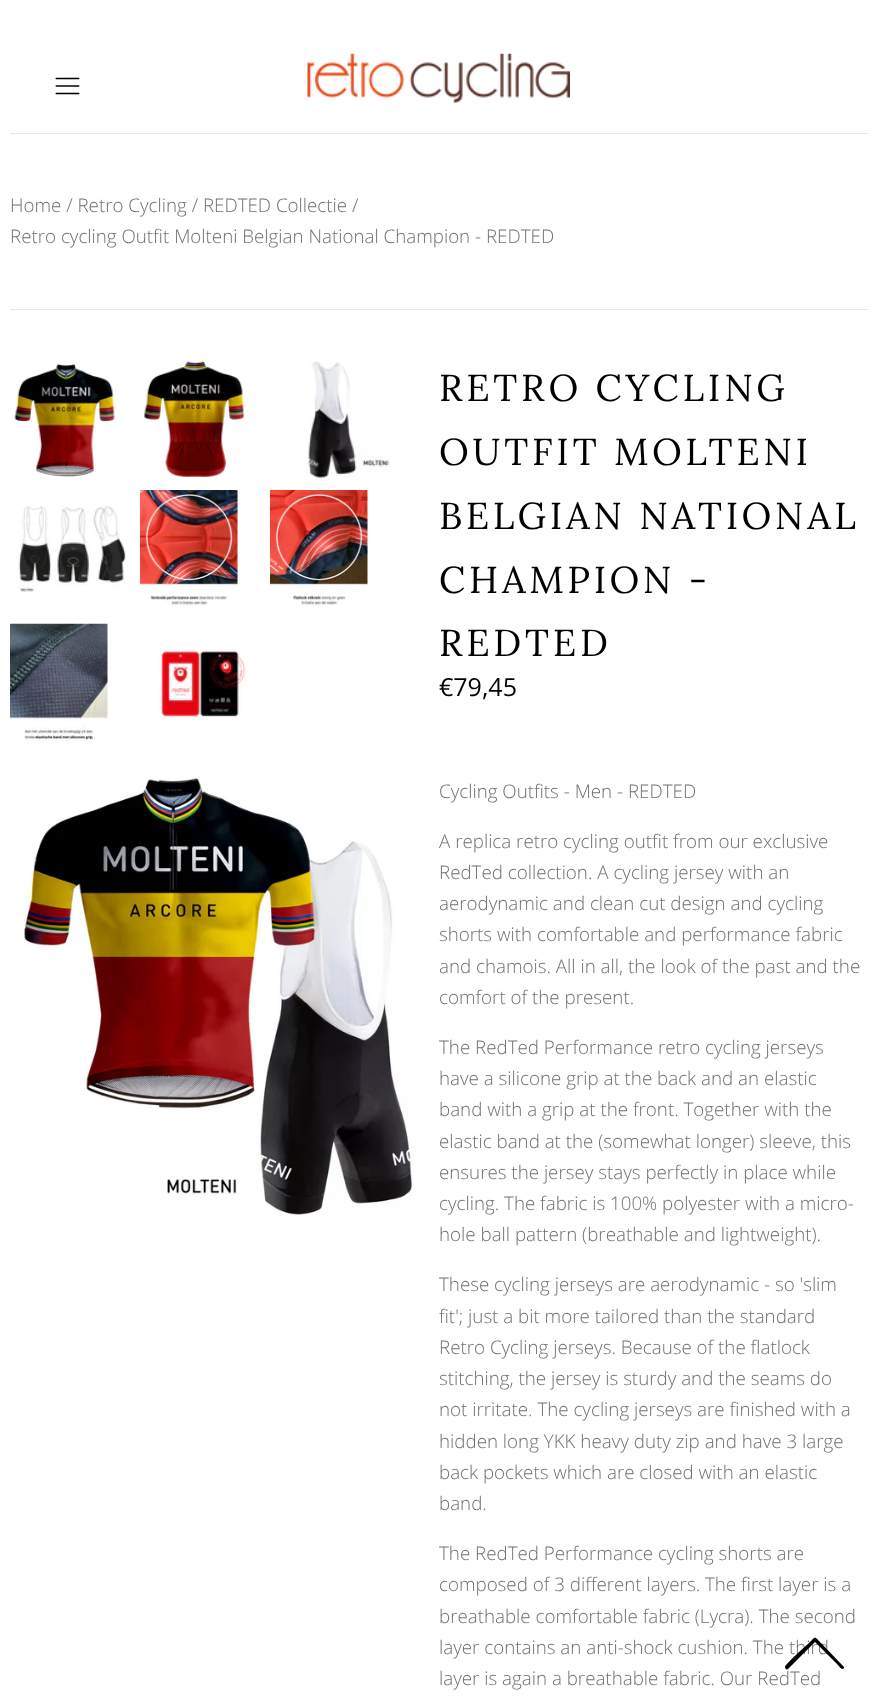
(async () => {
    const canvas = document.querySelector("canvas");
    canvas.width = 877;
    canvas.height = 1708;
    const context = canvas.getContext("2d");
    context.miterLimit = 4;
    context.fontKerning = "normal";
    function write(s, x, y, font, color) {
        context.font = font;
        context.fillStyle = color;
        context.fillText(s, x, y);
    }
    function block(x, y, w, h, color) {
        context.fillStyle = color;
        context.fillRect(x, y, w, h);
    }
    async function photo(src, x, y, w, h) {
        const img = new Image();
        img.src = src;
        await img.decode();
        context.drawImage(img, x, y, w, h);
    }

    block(0, 0, 877, 1708, "rgb(255, 255, 255)");
    await photo("media/1.png", 55, 77, 25, 18);
    await photo("media/2.png", 307, 53, 263, 50);
    block(10, 133, 858, 1, "rgb(230, 230, 230)");
    write("Home / Retro Cycling / REDTED Collectie /", 10, 212, "300 18.75px Open Sans", "rgb(113, 113, 113)");
    write("Retro cycling Outfit Molteni Belgian National Champion - REDTED", 10, 243, "300 18.75px Open Sans", "rgb(113, 113, 113)");
    block(10, 309, 858, 1, "rgb(230, 230, 230)");
    await photo("media/3.png", 14, 363, 101, 114);
    await photo("media/4.png", 144, 361, 101, 116);
    await photo("media/5.png", 306, 361, 84, 120);
    await photo("media/6.png", 18, 505, 108, 87);
    await photo("media/7.png", 140, 490, 98, 116);
    await photo("media/8.png", 270, 490, 98, 116);
    await photo("media/9.png", 10, 623, 98, 118);
    await photo("media/10.png", 159, 649, 88, 72);
    await photo("media/11.png", 23, 778, 391, 438);
    context.letterSpacing = "3.75px";
    write("RETRO CYCLING", 439, 401, "37.5px Lora", "rgb(0, 0, 0)");
    write("OUTFIT MOLTENI", 439, 465, "37.5px Lora", "rgb(0, 0, 0)");
    write("BELGIAN NATIONAL", 439, 529, "37.5px Lora", "rgb(0, 0, 0)");
    write("CHAMPION -", 439, 593, "37.5px Lora", "rgb(0, 0, 0)");
    write("REDTED", 439, 656, "37.5px Lora", "rgb(0, 0, 0)");
    context.letterSpacing = "0px";
    write("€79,45", 439, 696, "25px Open Sans", "rgb(0, 0, 0)");
    write("Cycling Outfits - Men - REDTED", 439, 798, "300 18.75px Open Sans", "rgb(113, 113, 113)");
    write("A replica retro cycling outfit from our exclusive", 439, 848, "300 18.75px Open Sans", "rgb(113, 113, 113)");
    write("RedTed collection. A cycling jersey with an", 439, 879, "300 18.75px Open Sans", "rgb(113, 113, 113)");
    write("aerodynamic and clean cut design and cycling", 439, 910, "300 18.75px Open Sans", "rgb(113, 113, 113)");
    write("shorts with comfortable and performance fabric", 439, 941, "300 18.75px Open Sans", "rgb(113, 113, 113)");
    write("and chamois. All in all, the look of the past and the", 439, 973, "300 18.75px Open Sans", "rgb(113, 113, 113)");
    write("comfort of the present.", 439, 1004, "300 18.75px Open Sans", "rgb(113, 113, 113)");
    write("The RedTed Performance retro cycling jerseys", 439, 1054, "300 18.75px Open Sans", "rgb(113, 113, 113)");
    write("have a silicone grip at the back and an elastic", 439, 1085, "300 18.75px Open Sans", "rgb(113, 113, 113)");
    write("band with a grip at the front. Together with the", 439, 1116, "300 18.75px Open Sans", "rgb(113, 113, 113)");
    write("elastic band at the (somewhat longer) sleeve, this", 439, 1148, "300 18.75px Open Sans", "rgb(113, 113, 113)");
    write("ensures the jersey stays perfectly in place while", 439, 1179, "300 18.75px Open Sans", "rgb(113, 113, 113)");
    write("cycling. The fabric is 100% polyester with a micro-", 439, 1210, "300 18.75px Open Sans", "rgb(113, 113, 113)");
    write("hole ball pattern (breathable and lightweight).", 439, 1241, "300 18.75px Open Sans", "rgb(113, 113, 113)");
    write("These cycling jerseys are aerodynamic - so 'slim", 439, 1291, "300 18.75px Open Sans", "rgb(113, 113, 113)");
    write("fit'; just a bit more tailored than the standard", 439, 1323, "300 18.75px Open Sans", "rgb(113, 113, 113)");
    write("Retro Cycling jerseys. Because of the flatlock", 439, 1354, "300 18.75px Open Sans", "rgb(113, 113, 113)");
    write("stitching, the jersey is sturdy and the seams do", 439, 1385, "300 18.75px Open Sans", "rgb(113, 113, 113)");
    write("not irritate. The cycling jerseys are finished with a", 439, 1416, "300 18.75px Open Sans", "rgb(113, 113, 113)");
    write("hidden long YKK heavy duty zip and have 3 large", 439, 1448, "300 18.75px Open Sans", "rgb(113, 113, 113)");
    write("back pockets which are closed with an elastic", 439, 1479, "300 18.75px Open Sans", "rgb(113, 113, 113)");
    write("band.", 439, 1510, "300 18.75px Open Sans", "rgb(113, 113, 113)");
    write("The RedTed Performance cycling shorts are", 439, 1560, "300 18.75px Open Sans", "rgb(113, 113, 113)");
    write("composed of 3 different layers. The first layer is a", 439, 1591, "300 18.75px Open Sans", "rgb(113, 113, 113)");
    write("breathable comfortable fabric (Lycra). The second", 439, 1623, "300 18.75px Open Sans", "rgb(113, 113, 113)");
    write("layer contains an anti-shock cushion. The third", 439, 1654, "300 18.75px Open Sans", "rgb(113, 113, 113)");
    write("layer is again a breathable fabric. Our RedTed", 439, 1685, "300 18.75px Open Sans", "rgb(113, 113, 113)");
    context.fillStyle = "rgb(0, 0, 0)";
    context.beginPath();
    context.moveTo(785, 1667);
    context.bezierCurveTo(785, 1669, 787, 1670, 788, 1669);
    context.lineTo(815, 1642);
    context.lineTo(837, 1664);
    context.bezierCurveTo(840, 1667, 842, 1671, 844, 1668);
    context.lineTo(844, 1667);
    context.lineTo(821, 1643);
    context.bezierCurveTo(814, 1636, 816, 1636, 809, 1643);
    context.lineTo(799, 1652);
    context.bezierCurveTo(797, 1654, 785, 1665, 785, 1667);
    context.closePath();
    context.fill();
})();
